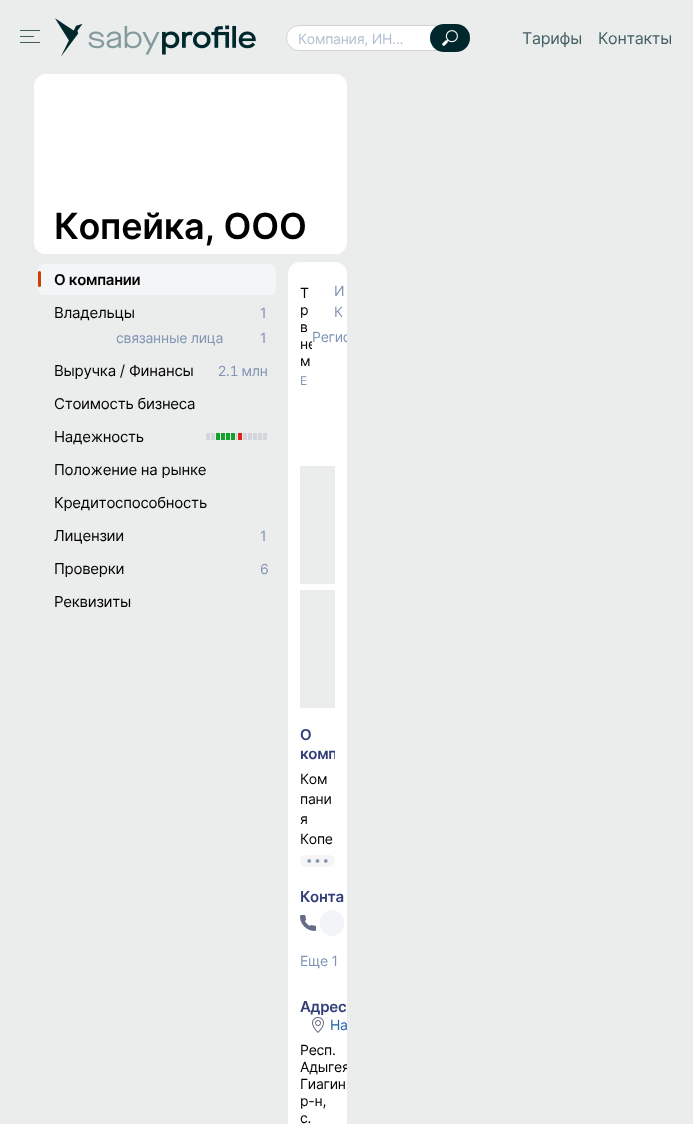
(async () => {
    const canvas = document.querySelector("canvas");
    canvas.width = 693;
    canvas.height = 1124;
    const context = canvas.getContext("2d");
    context.miterLimit = 4;
    context.fontKerning = "normal";
    function write(s, x, y, font, color) {
        context.font = font;
        context.fillStyle = color;
        context.fillText(s, x, y);
    }
    function block(x, y, w, h, color) {
        context.fillStyle = color;
        context.fillRect(x, y, w, h);
    }
    function card(x, y, w, h, r, color) {
        context.fillStyle = color;
        context.beginPath();
        context.roundRect(x, y, w, h, r);
        context.fill();
    }
    async function photo(src, x, y, w, h) {
        const img = new Image();
        img.src = src;
        await img.decode();
        context.drawImage(img, x, y, w, h);
    }
    let gradient;

    block(0, 0, 693, 1124, "rgb(235, 237, 237)");
    context.fillStyle = "rgb(255, 255, 255)";
    context.beginPath();
    context.roundRect(286.5, 25.5, 183, 25, 12.5);
    context.fill();
    context.strokeStyle = "rgb(212, 212, 212)";
    context.stroke();
    context.letterSpacing = "-0.25px";
    write("Компания, ИН…", 298, 44, "14px Inter", "rgb(179, 191, 209)");
    card(430, 24, 40, 28, 14, "rgb(0, 40, 44)");
    await photo("media/1.png", 442, 30, 16, 16);
    await photo("media/2.png", 55, 18, 201, 39);
    block(20, 30, 20, 1, "rgb(64, 94, 97)");
    block(20, 36, 14, 1, "rgb(64, 94, 97)");
    block(20, 42, 20, 1, "rgb(64, 94, 97)");
    write("Тарифы", 522, 44, "16px Inter", "rgb(64, 94, 97)");
    write("Контакты", 598, 44, "16px Inter", "rgb(64, 94, 97)");
    card(34, 74, 313, 180, 12, "rgb(255, 255, 255)");
    gradient = context.createLinearGradient(191, 254, 191, 74);
    gradient.addColorStop(0, "rgb(255, 255, 255)");
    gradient.addColorStop(0.64, "rgba(255, 255, 255, 0)");
    context.fillStyle = gradient;
    context.beginPath();
    context.roundRect(34, 74, 313, 180, 12);
    context.fill();
    write("Копейка, ООО", 54, 239, "600 36px Inter", "rgb(0, 0, 0)");
    card(38, 264, 238, 31, 6, "rgb(244, 245, 247)");
    card(38, 271, 3, 16, 1.5, "rgb(204, 61, 0)");
    write("О компании", 54, 285, "600 15px Inter", "rgb(0, 0, 0)");
    write("Владельцы", 54, 318, "15px Inter", "rgb(0, 0, 0)");
    write("1", 260, 318, "14px Inter", "rgb(128, 148, 179)");
    write("связанные лица", 116, 343, "14px Inter", "rgb(128, 148, 179)");
    write("1", 260, 343, "14px Inter", "rgb(128, 148, 179)");
    write("Выручка / Финансы", 54, 376, "15px Inter", "rgb(0, 0, 0)");
    write("2.1 млн", 218, 376, "14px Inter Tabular", "rgb(128, 148, 179)");
    write("Стоимость бизнеса", 54, 409, "15px Inter", "rgb(0, 0, 0)");
    write("Надежность", 54, 442, "15px Inter", "rgb(0, 0, 0)");
    block(206, 433, 4, 7, "rgb(210, 214, 218)");
    block(211, 433, 4, 7, "rgb(210, 214, 218)");
    block(216, 433, 4, 7, "rgb(18, 161, 44)");
    block(221, 433, 4, 7, "rgb(18, 161, 44)");
    block(226, 433, 4, 7, "rgb(18, 161, 44)");
    block(231, 433, 4, 7, "rgb(18, 161, 44)");
    block(236, 433, 1, 7, "rgb(204, 204, 204)");
    block(238, 433, 4, 7, "rgb(220, 34, 25)");
    block(243, 433, 4, 7, "rgb(210, 214, 218)");
    block(248, 433, 4, 7, "rgb(210, 214, 218)");
    block(253, 433, 4, 7, "rgb(210, 214, 218)");
    block(258, 433, 4, 7, "rgb(210, 214, 218)");
    block(263, 433, 4, 7, "rgb(210, 214, 218)");
    write("Положение на рынке", 54, 475, "15px Inter", "rgb(0, 0, 0)");
    write("Кредитоспособность", 54, 508, "15px Inter", "rgb(0, 0, 0)");
    write("Лицензии", 54, 541, "15px Inter", "rgb(0, 0, 0)");
    write("1", 260, 541, "14px Inter", "rgb(128, 148, 179)");
    write("Проверки", 54, 574, "15px Inter", "rgb(0, 0, 0)");
    write("6", 260, 574, "14px Inter", "rgb(128, 148, 179)");
    write("Реквизиты", 54, 607, "15px Inter", "rgb(0, 0, 0)");
    context.fillStyle = "rgb(255, 255, 255)";
    context.beginPath();
    context.roundRect(288, 262, 59, 862, [12, 12, 0, 0]);
    context.fill();
    write("Т", 300, 298, "14px Inter", "rgb(0, 0, 0)");
    write("р", 300, 315, "14px Inter", "rgb(0, 0, 0)");
    write("в", 300, 332, "14px Inter", "rgb(0, 0, 0)");
    context.save();
    context.beginPath();
    context.rect(300, 278, 12, 174);
    context.clip();
    write("не", 300, 349, "14px Inter", "rgb(0, 0, 0)");
    context.restore();
    write("м", 300, 366, "14px Inter", "rgb(0, 0, 0)");
    write("Е", 300, 385, "12px Inter", "rgb(128, 148, 179)");
    write("И", 334, 296, "14px Inter", "rgb(128, 148, 179)");
    write("К", 334, 317, "14px Inter", "rgb(128, 148, 179)");
    context.save();
    context.beginPath();
    context.roundRect(34, 74, 313, 1050, [12, 12, 0, 0]);
    context.clip();
    write("Регис", 312, 342, "14px Inter", "rgb(128, 148, 179)");
    context.restore();
    block(300, 466, 35, 118, "rgb(235, 237, 237)");
    block(300, 590, 35, 118, "rgb(235, 237, 237)");
    write("О", 300, 740, "600 15px Inter", "rgb(49, 62, 120)");
    context.save();
    context.beginPath();
    context.rect(300, 708, 35, 159);
    context.clip();
    write("комп", 300, 759, "600 15px Inter", "rgb(49, 62, 120)");
    context.restore();
    write("Ком", 300, 784, "14px Inter", "rgb(0, 0, 0)");
    write("пани", 300, 804, "14px Inter", "rgb(0, 0, 0)");
    write("я", 300, 824, "14px Inter", "rgb(0, 0, 0)");
    write("Копе", 300, 844, "14px Inter", "rgb(0, 0, 0)");
    card(300, 855, 35, 12, 6, "rgb(245, 245, 245)");
    await photo("media/3.png", 307, 859, 21, 4);
    write("Конта", 300, 902, "600 15px Inter", "rgb(49, 62, 120)");
    await photo("media/4.png", 300, 915, 16, 16);
    card(320, 910, 24, 26, 12, "rgb(243, 244, 248)");
    write("Еще 1", 300, 966, "14px Inter", "rgb(128, 148, 179)");
    write("Адрес", 300, 1012, "600 15px Inter", "rgb(49, 62, 120)");
    await photo("media/5.png", 312, 1017, 12, 16);
    write("На", 330, 1030, "14px Inter", "rgb(37, 98, 170)");
    write("Респ.", 300, 1055, "14px Inter", "rgb(0, 0, 0)");
    context.save();
    context.beginPath();
    context.roundRect(34, 74, 313, 1050, [12, 12, 0, 0]);
    context.clip();
    write("Адыгея", 300, 1072, "14px Inter", "rgb(0, 0, 0)");
    context.restore();
    write("Гиагин", 300, 1089, "14px Inter", "rgb(0, 0, 0)");
    write("р-н,", 300, 1106, "14px Inter", "rgb(0, 0, 0)");
    write("с.", 300, 1123, "14px Inter", "rgb(0, 0, 0)");
})();
